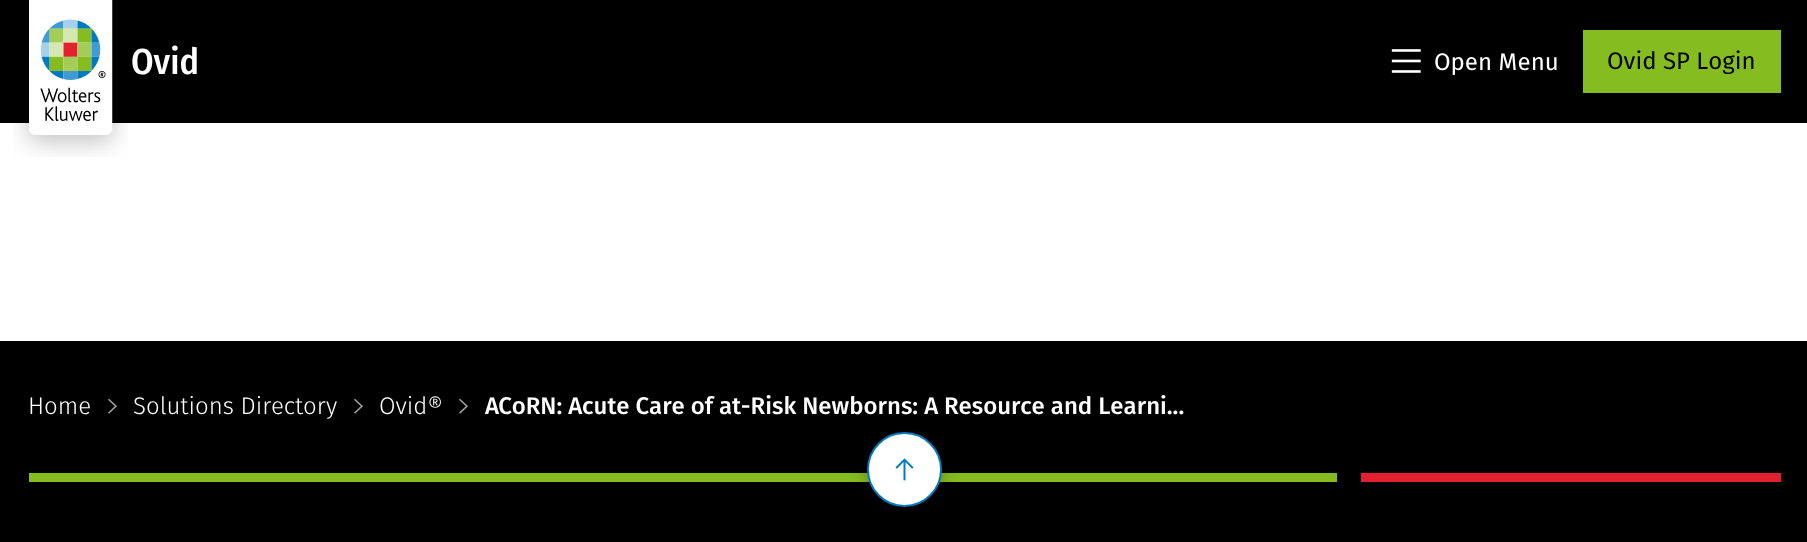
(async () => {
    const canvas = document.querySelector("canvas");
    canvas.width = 1807;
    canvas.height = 542;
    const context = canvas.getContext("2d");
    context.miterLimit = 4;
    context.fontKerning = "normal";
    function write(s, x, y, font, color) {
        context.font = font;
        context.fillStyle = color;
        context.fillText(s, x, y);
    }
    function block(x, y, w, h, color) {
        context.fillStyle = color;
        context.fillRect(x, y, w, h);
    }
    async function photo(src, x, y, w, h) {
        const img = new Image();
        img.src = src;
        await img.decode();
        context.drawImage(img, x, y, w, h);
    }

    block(0, 0, 1807, 542, "rgb(255, 255, 255)");
    block(0, 0, 1807, 123, "rgb(0, 0, 0)");
    await photo("media/1.png", 13, 0, 115, 157);
    write("Ovid", 131, 74, "500 36px Fira Sans Condensed", "rgb(255, 255, 255)");
    await photo("media/2.png", 1391, 49, 30, 24);
    write("Open Menu", 1434, 70, "24px Fira Sans", "rgb(255, 255, 255)");
    block(1583, 30, 198, 63, "rgb(133, 188, 32)");
    write("Ovid SP Login", 1607, 69, "24px Fira Sans", "rgb(0, 0, 0)");
    block(0, 341, 1807, 201, "rgb(0, 0, 0)");
    write("Home", 28, 414, "300 24px Fira Sans", "rgb(255, 255, 255)");
    await photo("media/3.png", 108, 398, 9, 16);
    write("Solutions Directory", 133, 414, "300 24px Fira Sans", "rgb(255, 255, 255)");
    await photo("media/3.png", 354, 398, 9, 16);
    write("Ovid®", 379, 414, "300 24px Fira Sans", "rgb(255, 255, 255)");
    await photo("media/3.png", 459, 398, 9, 16);
    write("ACoRN: Acute Care of at-Risk Newborns: A Resource and Learni...", 485, 414, "500 24px Fira Sans", "rgb(255, 255, 255)");
    block(29, 473, 1308, 9, "rgb(133, 188, 32)");
    block(1361, 473, 420, 9, "rgb(229, 32, 46)");
    context.fillStyle = "rgba(0, 0, 0, 0.3)";
    context.filter = "blur(9px)";
    context.beginPath();
    context.roundRect(867, 432, 75, 75, 37.5);
    context.fill();
    context.filter = "none";
    context.fillStyle = "rgb(255, 255, 255)";
    context.beginPath();
    context.arc(904.5, 469.5, 36.5, 0, Math.PI * 2);
    context.fill();
    context.strokeStyle = "rgb(0, 122, 195)";
    context.lineWidth = 2;
    context.stroke();
    await photo("media/4.png", 895, 458, 19, 23);
})();
